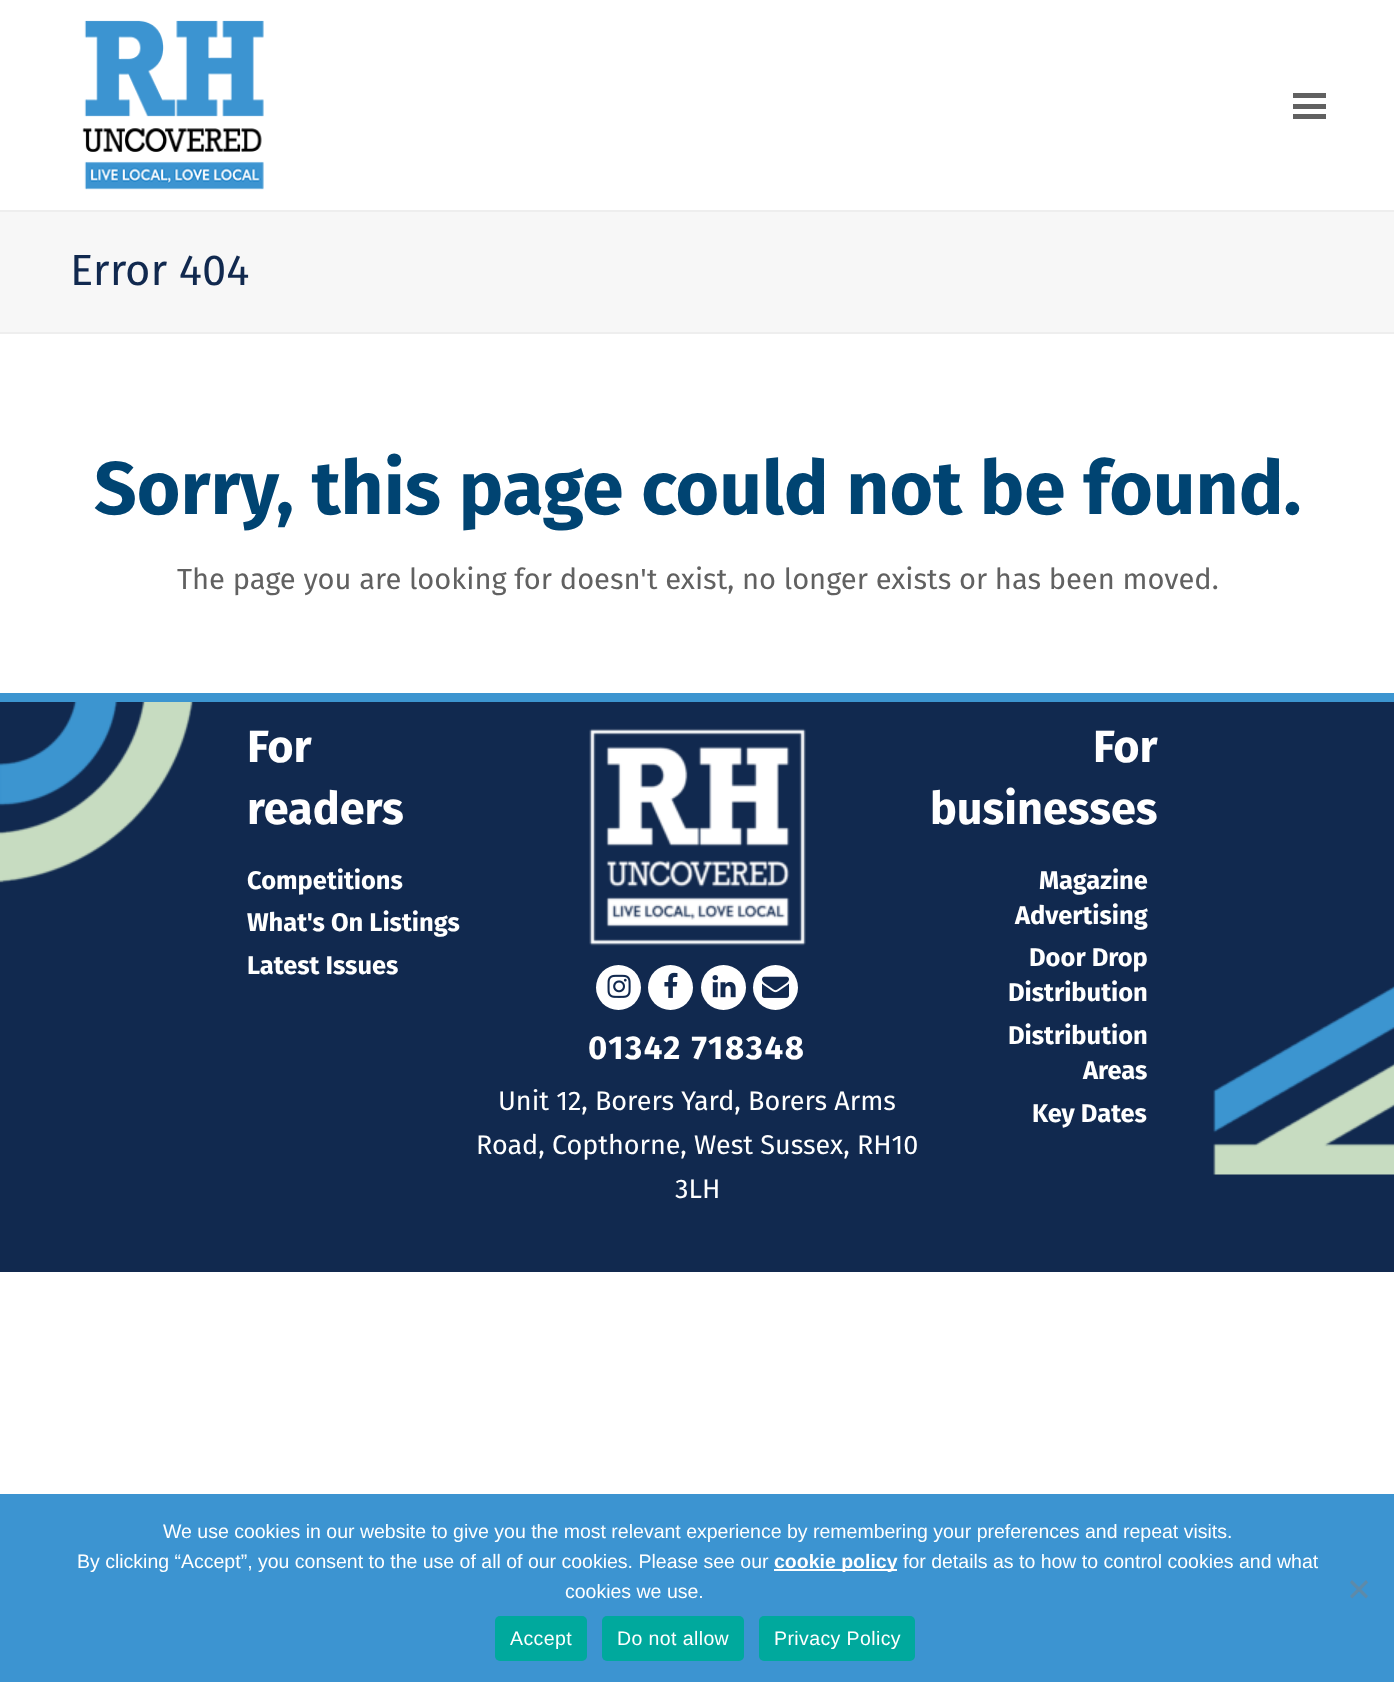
(async () => {
    const canvas = document.querySelector("canvas");
    canvas.width = 1394;
    canvas.height = 1682;
    const context = canvas.getContext("2d");
    context.miterLimit = 4;
    context.fontKerning = "normal";
    function write(s, x, y, font, color) {
        context.font = font;
        context.fillStyle = color;
        context.fillText(s, x, y);
    }
    function block(x, y, w, h, color) {
        context.fillStyle = color;
        context.fillRect(x, y, w, h);
    }
    function card(x, y, w, h, r, color) {
        context.fillStyle = color;
        context.beginPath();
        context.roundRect(x, y, w, h, r);
        context.fill();
    }
    async function photo(src, x, y, w, h) {
        const img = new Image();
        img.src = src;
        await img.decode();
        context.drawImage(img, x, y, w, h);
    }

    block(0, 0, 1394, 1682, "rgb(255, 255, 255)");
    await photo("media/1.png", 82, 20, 182, 170);
    block(1293, 104, 33, 5, "rgb(97, 97, 97)");
    block(1293, 93, 33, 5, "rgb(97, 97, 97)");
    block(1293, 114, 33, 5, "rgb(97, 97, 97)");
    block(0, 212, 1394, 120, "rgb(247, 247, 247)");
    block(0, 210, 1394, 2, "rgb(238, 238, 238)");
    block(0, 332, 1394, 2, "rgb(238, 238, 238)");
    write("Error 404", 70, 285, "43.5px Fira Sans", "rgb(17, 41, 79)");
    write("Sorry, this page could not be found.", 94, 514, "bold 74.75px Fira Sans", "rgb(0, 68, 114)");
    write("The page you are looking for doesn't exist, no longer exists or has been moved.", 177, 589, "29.1px Fira Sans", "rgb(97, 97, 97)");
    block(0, 693, 1394, 9, "rgb(60, 149, 208)");
    block(0, 702, 1394, 570, "rgb(17, 41, 79)");
    await photo("media/2.png", 0, 702, 194, 181);
    write("For", 247, 762, "bold 45px Fira Sans", "rgb(255, 255, 255)");
    write("readers", 247, 824, "bold 45px Fira Sans", "rgb(255, 255, 255)");
    write("Competitions", 247, 889, "bold 25.5px Fira Sans", "rgb(255, 255, 255)");
    write("What's On Listings", 247, 931, "bold 25.5px Fira Sans", "rgb(255, 255, 255)");
    write("Latest Issues", 247, 974, "bold 25.5px Fira Sans", "rgb(255, 255, 255)");
    await photo("media/3.png", 589, 728, 217, 218);
    context.beginPath();
    context.arc(618.5, 987.5, 22.5, 0, Math.PI * 2);
    context.fill();
    await photo("media/4.png", 607, 974, 24, 24);
    context.beginPath();
    context.arc(670.5, 987.5, 22.5, 0, Math.PI * 2);
    context.fill();
    await photo("media/5.png", 664, 972, 14, 26);
    context.beginPath();
    context.arc(723.5, 987.5, 22.5, 0, Math.PI * 2);
    context.fill();
    await photo("media/6.png", 712, 975, 24, 23);
    context.beginPath();
    context.arc(775.5, 987.5, 22.5, 0, Math.PI * 2);
    context.fill();
    await photo("media/7.png", 762, 976, 27, 22);
    context.letterSpacing = "1.6px";
    write("01342 718348", 588, 1059, "bold 33px Fira Sans", "rgb(255, 255, 255)");
    context.letterSpacing = "0px";
    write("Unit 12, Borers Yard, Borers Arms", 498, 1110, "27px Fira Sans", "rgb(255, 255, 255)");
    write("Road, Copthorne, West Sussex, RH10", 476, 1154, "27px Fira Sans", "rgb(255, 255, 255)");
    write("3LH", 675, 1198, "27px Fira Sans", "rgb(255, 255, 255)");
    write("For", 1093, 762, "bold 45px Fira Sans", "rgb(255, 255, 255)");
    write("businesses", 930, 824, "bold 45px Fira Sans", "rgb(255, 255, 255)");
    write("Magazine", 1039, 889, "bold 25.5px Fira Sans", "rgb(255, 255, 255)");
    write("Advertising", 1015, 924, "bold 25.5px Fira Sans", "rgb(255, 255, 255)");
    write("Door Drop", 1029, 966, "bold 25.5px Fira Sans", "rgb(255, 255, 255)");
    write("Distribution", 1008, 1001, "bold 25.5px Fira Sans", "rgb(255, 255, 255)");
    write("Distribution", 1008, 1044, "bold 25.5px Fira Sans", "rgb(255, 255, 255)");
    write("Areas", 1083, 1079, "bold 25.5px Fira Sans", "rgb(255, 255, 255)");
    write("Key Dates", 1032, 1122, "bold 25.5px Fira Sans", "rgb(255, 255, 255)");
    await photo("media/8.png", 1213, 986, 181, 189);
    block(0, 1494, 1394, 188, "rgb(60, 148, 209)");
    write("We use cookies in our website to give you the most relevant experience by remembering your preferences and repeat visits.", 163, 1538, "19.5px Liberation Sans", "rgb(255, 255, 255)");
    write("By clicking “Accept”, you consent to the use of all of our cookies. Please see our", 77, 1568, "19.5px Liberation Sans", "rgb(255, 255, 255)");
    block(774, 1569, 123, 2, "rgb(255, 255, 255)");
    write("cookie policy", 774, 1568, "bold 19.5px Liberation Sans", "rgb(255, 255, 255)");
    write("for details as to how to control cookies and what", 903, 1568, "19.5px Liberation Sans", "rgb(255, 255, 255)");
    write("cookies we use.", 565, 1598, "19.5px Liberation Sans", "rgb(255, 255, 255)");
    context.fillStyle = "rgb(94, 138, 169)";
    context.beginPath();
    context.moveTo(1366, 1580);
    context.lineTo(1368, 1582.5);
    context.lineTo(1352, 1598.5);
    context.lineTo(1350, 1596);
    context.closePath();
    context.fill();
    context.beginPath();
    context.moveTo(1350, 1582.5);
    context.lineTo(1352, 1580);
    context.lineTo(1368, 1596);
    context.lineTo(1366, 1598.5);
    context.closePath();
    context.fill();
    card(495, 1616, 92, 45, 5, "rgb(0, 169, 157)");
    context.letterSpacing = "0.4px";
    write("Accept", 510, 1645, "19.5px Liberation Sans", "rgb(255, 255, 255)");
    card(602, 1616, 142, 45, 5, "rgb(0, 169, 157)");
    write("Do not allow", 617, 1645, "19.5px Liberation Sans", "rgb(255, 255, 255)");
    card(759, 1616, 156, 45, 5, "rgb(0, 169, 157)");
    write("Privacy Policy", 774, 1645, "19.5px Liberation Sans", "rgb(255, 255, 255)");
})();
